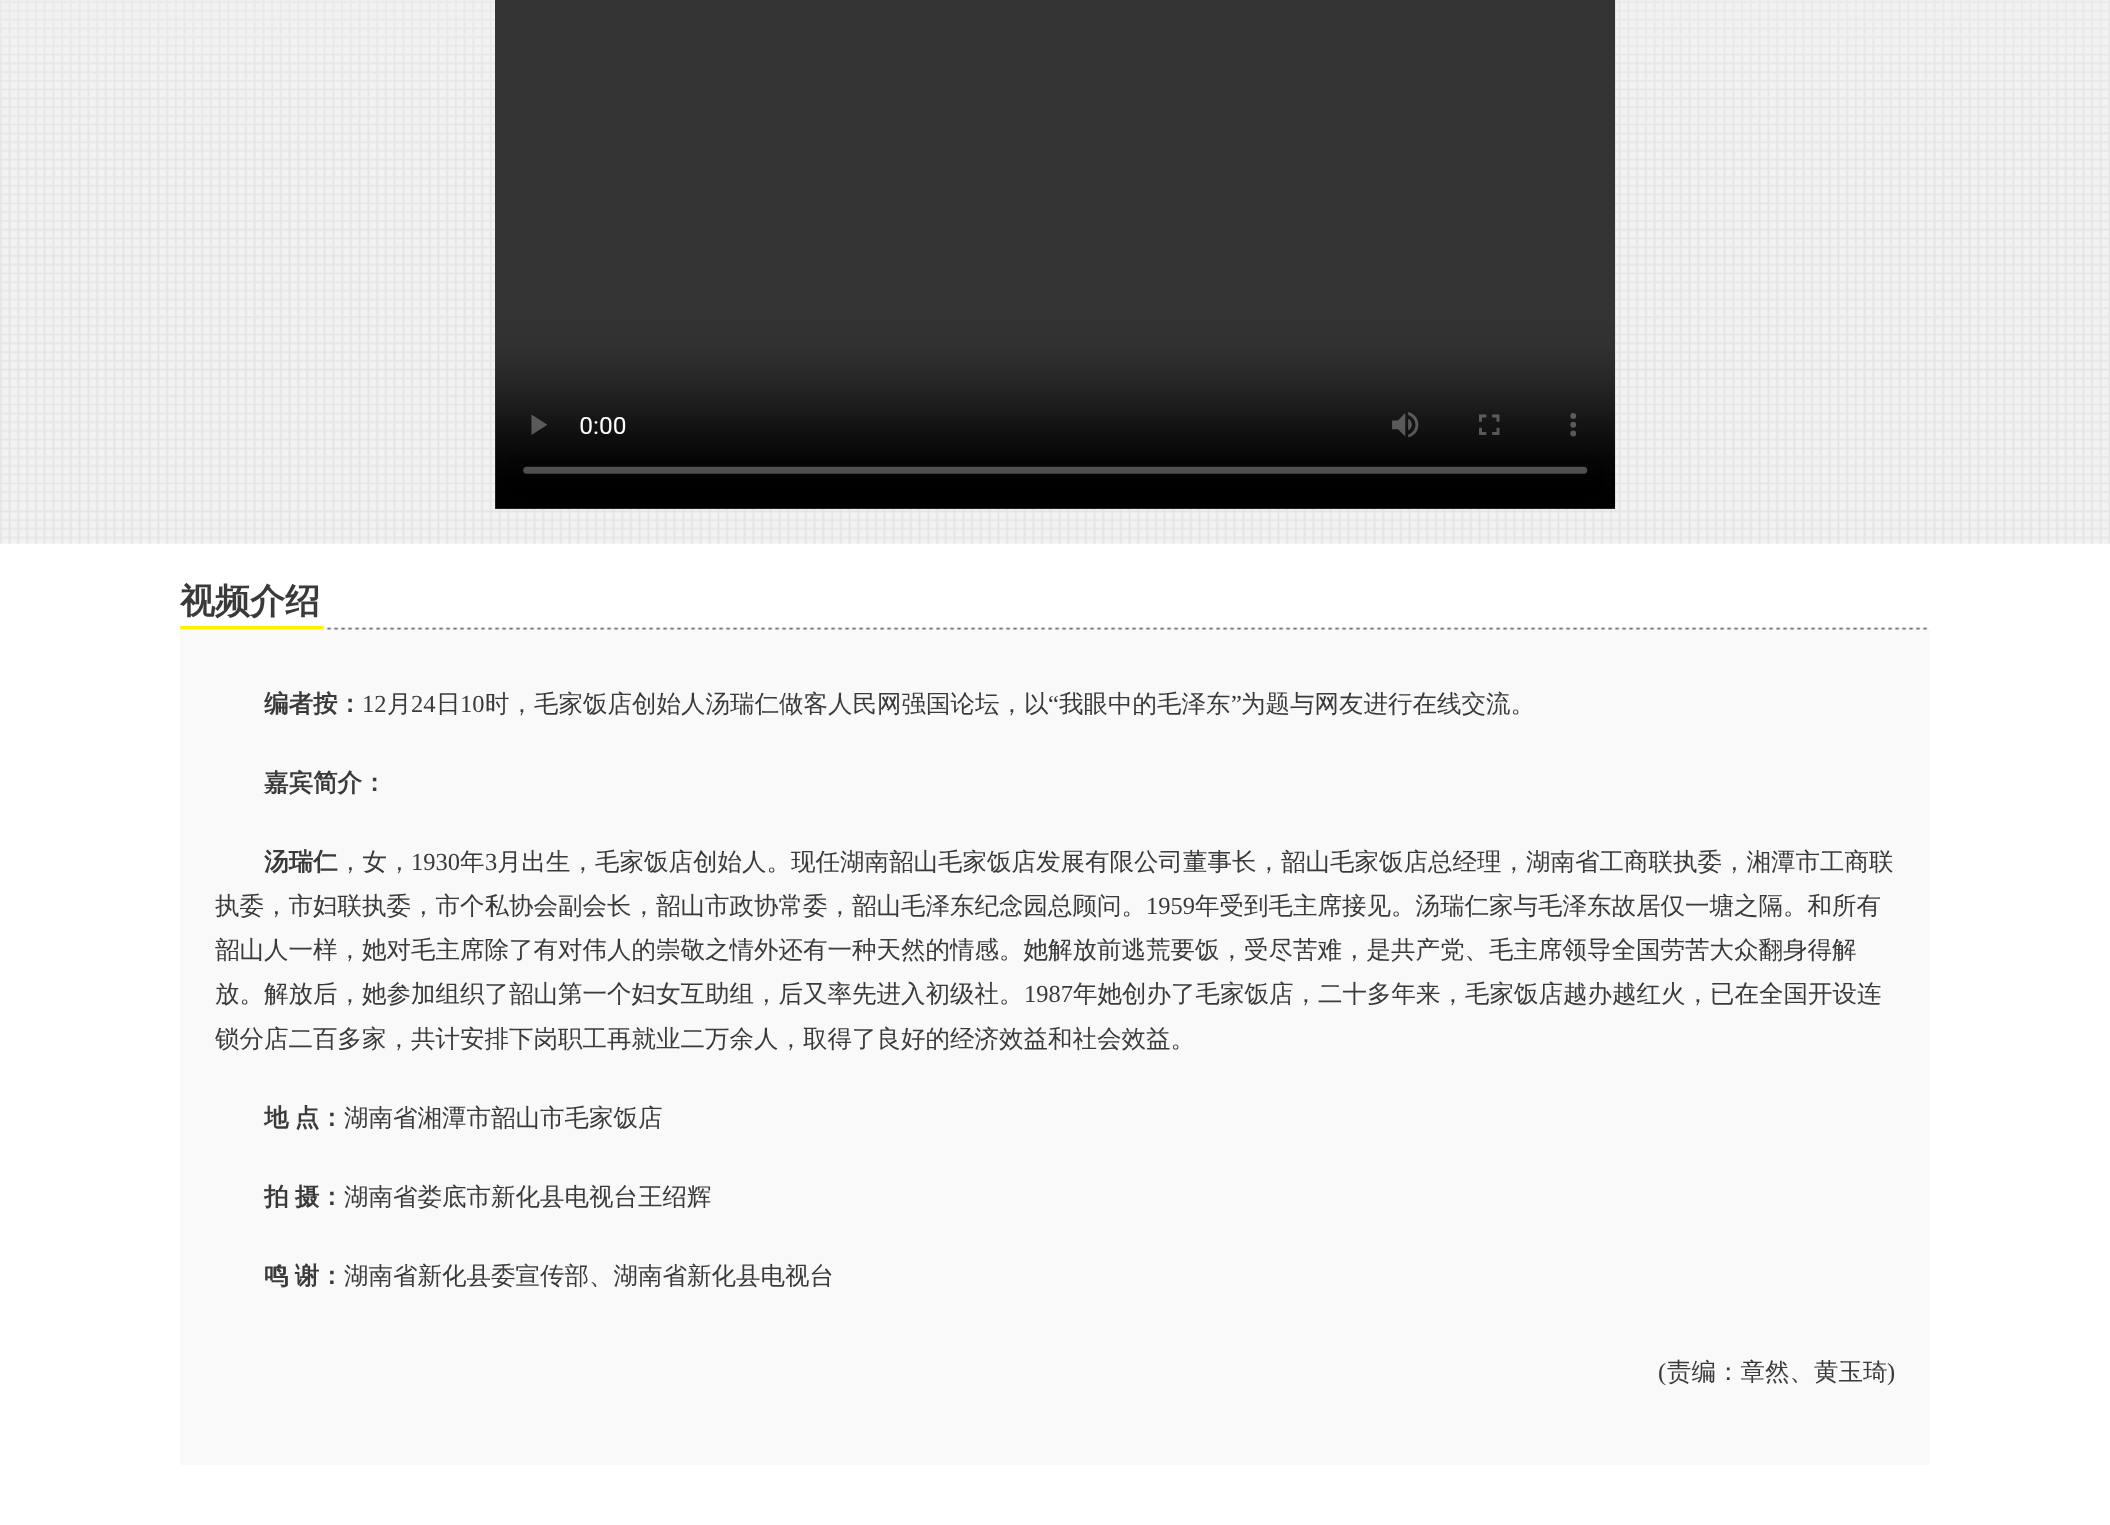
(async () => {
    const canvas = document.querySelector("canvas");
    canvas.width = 2110;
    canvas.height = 1525;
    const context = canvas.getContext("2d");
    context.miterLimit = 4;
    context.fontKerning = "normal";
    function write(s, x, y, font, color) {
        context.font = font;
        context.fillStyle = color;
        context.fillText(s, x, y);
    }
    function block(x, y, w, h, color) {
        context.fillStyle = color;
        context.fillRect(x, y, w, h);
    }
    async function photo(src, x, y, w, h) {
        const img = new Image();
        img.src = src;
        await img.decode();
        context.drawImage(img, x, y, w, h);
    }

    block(0, 0, 2110, 1525, "rgb(255, 255, 255)");
    await photo("media/1.png", 0, 0, 2110, 544);
    block(495, 0, 1120, 509, "rgb(56, 56, 56)");
    await photo("media/2.png", 495, 0, 1121, 509);
    await photo("media/3.png", 180, 626, 1748, 4);
    write("视频介绍", 180, 613, "bold 35px WenQuanYi Zen Hei", "rgb(58, 58, 58)");
    block(180, 630, 1750, 835, "rgb(249, 249, 249)");
    write("编者按：", 264, 712, "bold 24.5px WenQuanYi Zen Hei", "rgb(58, 58, 58)");
    write("12", 362, 712, "24.5px Liberation Serif", "rgb(58, 58, 58)");
    write("月", 387, 712, "500 24.5px WenQuanYi Zen Hei", "rgb(58, 58, 58)");
    write("24", 411, 712, "24.5px Liberation Serif", "rgb(58, 58, 58)");
    write("日", 436, 712, "500 24.5px WenQuanYi Zen Hei", "rgb(58, 58, 58)");
    write("10", 460, 712, "24.5px Liberation Serif", "rgb(58, 58, 58)");
    write("时，毛家饭店创始人汤瑞仁做客人民网强国论坛，以", 485, 712, "500 24.5px WenQuanYi Zen Hei", "rgb(58, 58, 58)");
    write("“", 1048, 712, "24.5px Liberation Serif", "rgb(58, 58, 58)");
    write("我眼中的毛泽东", 1059, 712, "500 24.5px WenQuanYi Zen Hei", "rgb(58, 58, 58)");
    write("”", 1231, 712, "24.5px Liberation Serif", "rgb(58, 58, 58)");
    write("为题与网友进行在线交流。", 1241, 712, "500 24.5px WenQuanYi Zen Hei", "rgb(58, 58, 58)");
    write("嘉宾简介：", 264, 791, "bold 24.5px WenQuanYi Zen Hei", "rgb(58, 58, 58)");
    write("汤瑞仁", 264, 870, "bold 24.5px WenQuanYi Zen Hei", "rgb(58, 58, 58)");
    write("，女，", 338, 870, "500 24.5px WenQuanYi Zen Hei", "rgb(58, 58, 58)");
    write("1930", 411, 870, "24.5px Liberation Serif", "rgb(58, 58, 58)");
    write("年", 460, 870, "500 24.5px WenQuanYi Zen Hei", "rgb(58, 58, 58)");
    write("3", 485, 870, "24.5px Liberation Serif", "rgb(58, 58, 58)");
    write("月出生，毛家饭店创始人。现任湖南韶山毛家饭店发展有限公司董事长，韶山毛家饭店总经理，湖南省工商联执委，湘潭市工商联", 497, 870, "500 24.5px WenQuanYi Zen Hei", "rgb(58, 58, 58)");
    write("执委，市妇联执委，市个私协会副会长，韶山市政协常委，韶山毛泽东纪念园总顾问。", 215, 914, "500 24.5px WenQuanYi Zen Hei", "rgb(58, 58, 58)");
    write("1959", 1146, 914, "24.5px Liberation Serif", "rgb(58, 58, 58)");
    write("年受到毛主席接见。汤瑞仁家与毛泽东故居仅一塘之隔。和所有", 1195, 914, "500 24.5px WenQuanYi Zen Hei", "rgb(58, 58, 58)");
    write("韶山人一样，她对毛主席除了有对伟人的崇敬之情外还有一种天然的情感。她解放前逃荒要饭，受尽苦难，是共产党、毛主席领导全国劳苦大众翻身得解", 215, 958, "500 24.5px WenQuanYi Zen Hei", "rgb(58, 58, 58)");
    write("放。解放后，她参加组织了韶山第一个妇女互助组，后又率先进入初级社。", 215, 1002, "500 24.5px WenQuanYi Zen Hei", "rgb(58, 58, 58)");
    write("1987", 1024, 1002, "24.5px Liberation Serif", "rgb(58, 58, 58)");
    write("年她创办了毛家饭店，二十多年来，毛家饭店越办越红火，已在全国开设连", 1073, 1002, "500 24.5px WenQuanYi Zen Hei", "rgb(58, 58, 58)");
    write("锁分店二百多家，共计安排下岗职工再就业二万余人，取得了良好的经济效益和社会效益。", 215, 1047, "500 24.5px WenQuanYi Zen Hei", "rgb(58, 58, 58)");
    context.wordSpacing = "-1px";
    write("地 点：", 264, 1126, "bold 24.5px WenQuanYi Zen Hei", "rgb(58, 58, 58)");
    context.wordSpacing = "0px";
    write("湖南省湘潭市韶山市毛家饭店", 344, 1126, "500 24.5px WenQuanYi Zen Hei", "rgb(58, 58, 58)");
    context.wordSpacing = "-1px";
    write("拍 摄：", 264, 1205, "bold 24.5px WenQuanYi Zen Hei", "rgb(58, 58, 58)");
    context.wordSpacing = "0px";
    write("湖南省娄底市新化县电视台王绍辉", 344, 1205, "500 24.5px WenQuanYi Zen Hei", "rgb(58, 58, 58)");
    context.wordSpacing = "-1px";
    write("鸣 谢：", 264, 1284, "bold 24.5px WenQuanYi Zen Hei", "rgb(58, 58, 58)");
    context.wordSpacing = "0px";
    write("湖南省新化县委宣传部、湖南省新化县电视台", 344, 1284, "500 24.5px WenQuanYi Zen Hei", "rgb(58, 58, 58)");
    write("(", 1658, 1380, "24.5px Liberation Serif", "rgb(58, 58, 58)");
    write("责编：章然、黄玉琦", 1667, 1380, "500 24.5px WenQuanYi Zen Hei", "rgb(58, 58, 58)");
    write(")", 1887, 1380, "24.5px Liberation Serif", "rgb(58, 58, 58)");
})();
